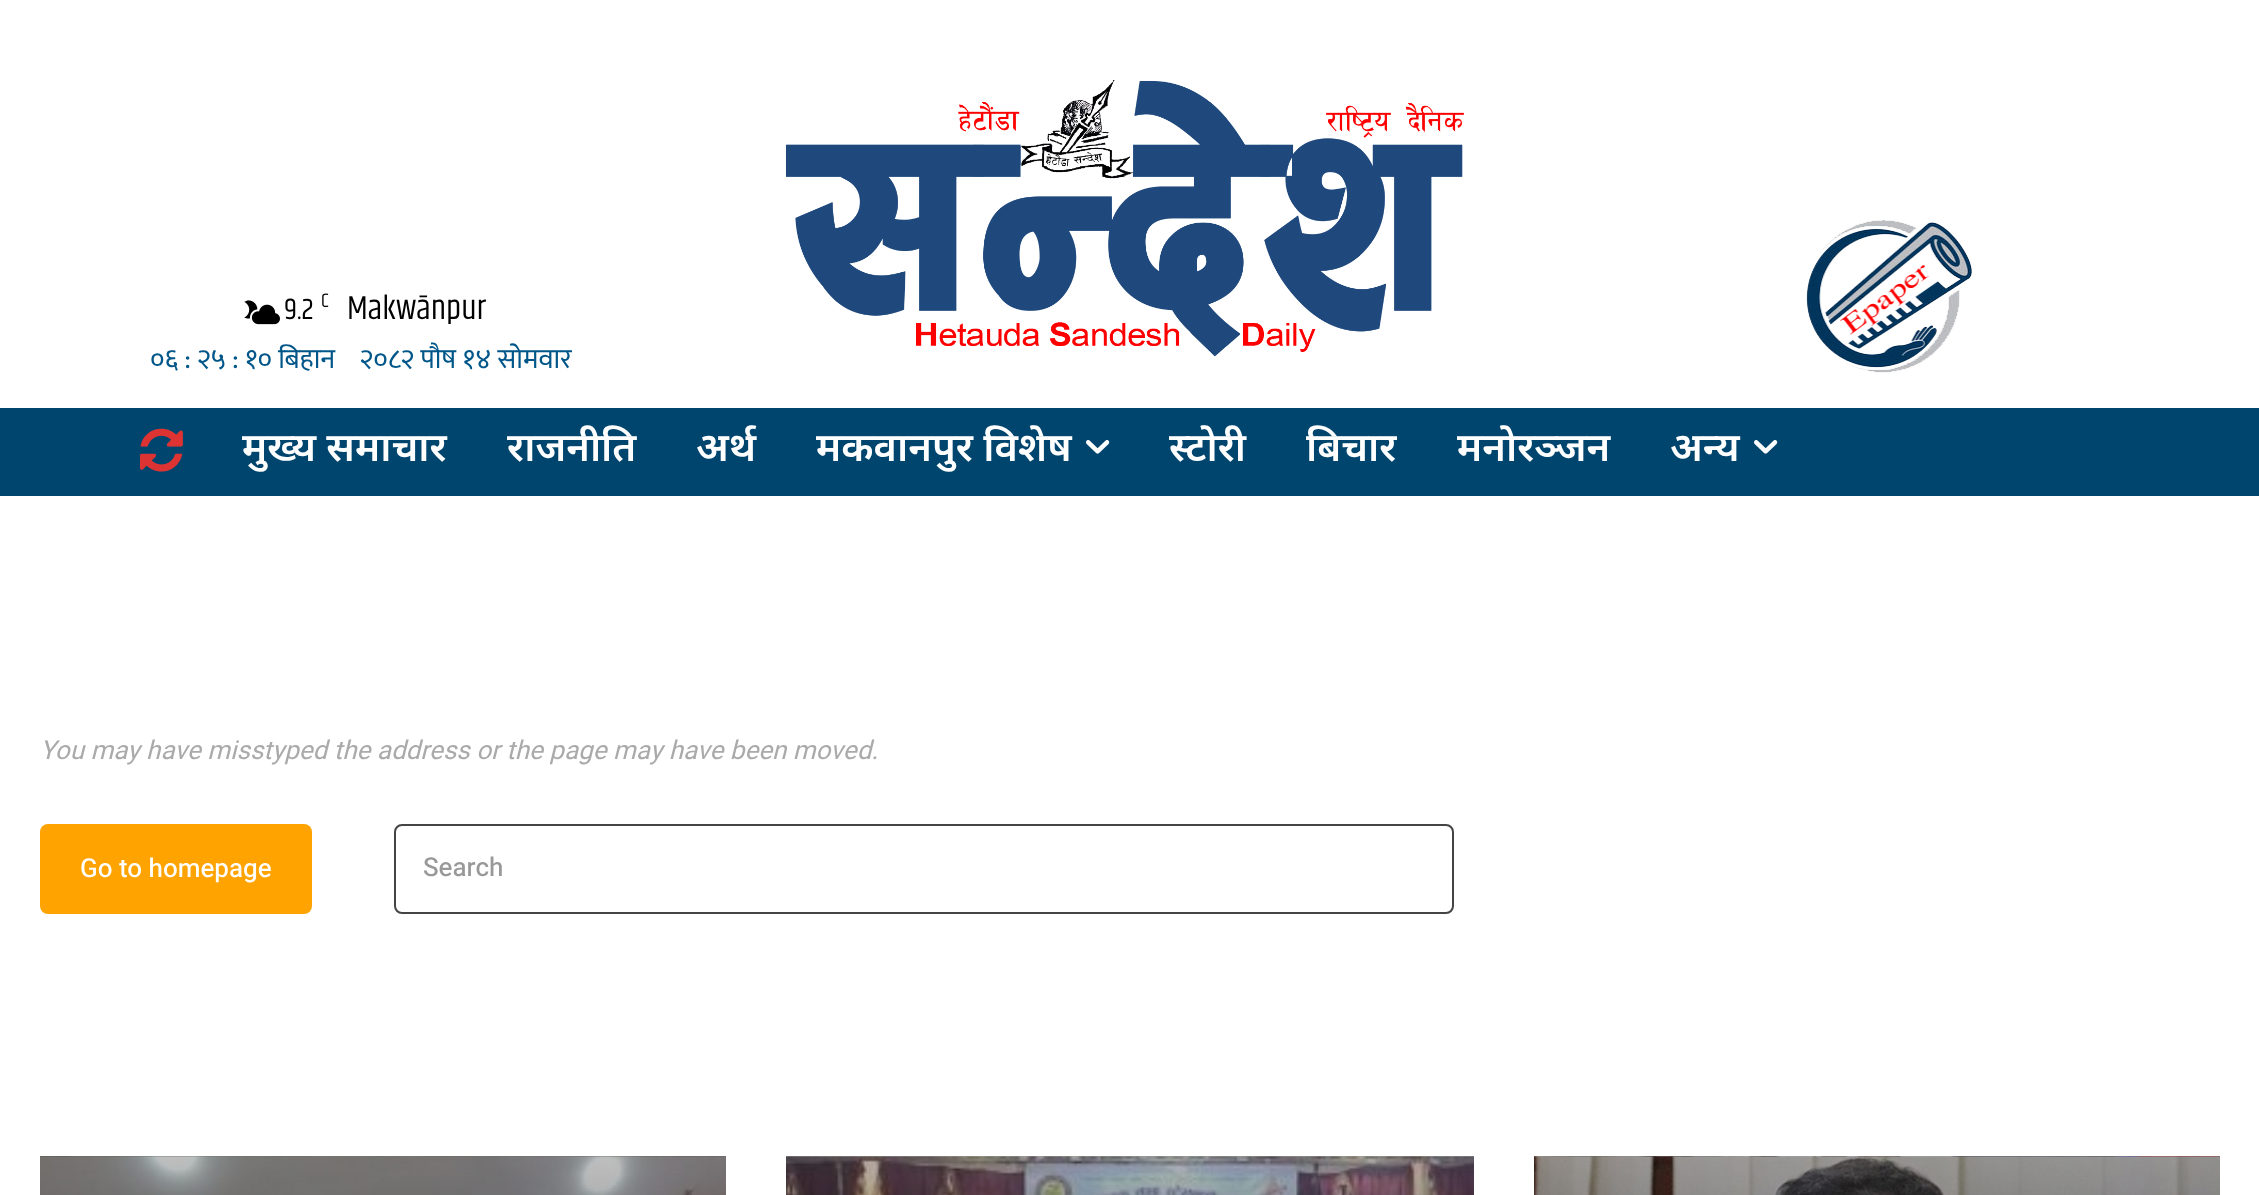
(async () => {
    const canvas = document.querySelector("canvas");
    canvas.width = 2259;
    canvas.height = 1195;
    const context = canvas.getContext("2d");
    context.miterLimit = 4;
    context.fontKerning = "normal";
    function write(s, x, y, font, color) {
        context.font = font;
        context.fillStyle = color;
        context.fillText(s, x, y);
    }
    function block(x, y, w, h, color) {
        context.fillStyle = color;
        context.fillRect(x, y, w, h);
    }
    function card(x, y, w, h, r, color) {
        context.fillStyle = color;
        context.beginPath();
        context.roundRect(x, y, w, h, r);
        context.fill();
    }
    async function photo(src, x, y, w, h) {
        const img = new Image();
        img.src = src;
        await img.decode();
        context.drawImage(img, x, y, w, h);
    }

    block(0, 0, 2259, 1195, "rgb(255, 255, 255)");
    await photo("media/1.png", 244, 300, 36, 25);
    write("9.2", 284, 319, "30px Khand", "rgb(0, 0, 0)");
    write("C", 321, 307, "20px Khand", "rgb(0, 0, 0)");
    write("Makwānpur", 347, 319, "34px Khand", "rgb(0, 0, 0)");
    await photo("media/2.png", 151, 342, 421, 29);
    await photo("media/3.png", 785, 80, 679, 277);
    await photo("media/4.png", 1806, 220, 166, 153);
    block(0, 408, 2259, 88, "rgb(0, 69, 110)");
    await photo("media/5.png", 140, 428, 43, 44);
    write("मुख्य समाचार", 242, 461, "600 40px Noto Sans Devanagari", "rgb(255, 255, 255)");
    write("राजनीति", 507, 461, "600 40px Noto Sans Devanagari", "rgb(255, 255, 255)");
    write("अर्थ", 696, 461, "600 40px Noto Sans Devanagari", "rgb(255, 255, 255)");
    write("मकवानपुर विशेष", 816, 461, "600 40px Noto Sans Devanagari", "rgb(255, 255, 255)");
    await photo("media/6.png", 1086, 440, 24, 14);
    write("स्टोरी", 1169, 461, "600 40px Noto Sans Devanagari", "rgb(255, 255, 255)");
    write("बिचार", 1306, 461, "600 40px Noto Sans Devanagari", "rgb(255, 255, 255)");
    write("मनोरञ्जन", 1457, 461, "600 40px Noto Sans Devanagari", "rgb(255, 255, 255)");
    write("अन्य", 1670, 461, "600 40px Noto Sans Devanagari", "rgb(255, 255, 255)");
    await photo("media/6.png", 1754, 440, 24, 14);
    write("You may have misstyped the address or the page may have been moved.", 40, 759, "italic 26px Heebo", "rgb(170, 170, 170)");
    card(40, 824, 272, 90, 8, "rgb(255, 163, 1)");
    write("Go to homepage", 80, 877, "500 26px Heebo", "rgb(255, 255, 255)");
    context.beginPath();
    context.roundRect(395, 825, 1058, 88, 7);
    context.strokeStyle = "rgb(68, 68, 68)";
    context.lineWidth = 2;
    context.stroke();
    write("Search", 423, 876, "500 26px Heebo", "rgb(153, 153, 153)");
    await photo("media/7.png", 40, 1156, 686, 39);
    await photo("media/8.png", 786, 1156, 688, 39);
    await photo("media/9.png", 1534, 1156, 686, 39);
})();
